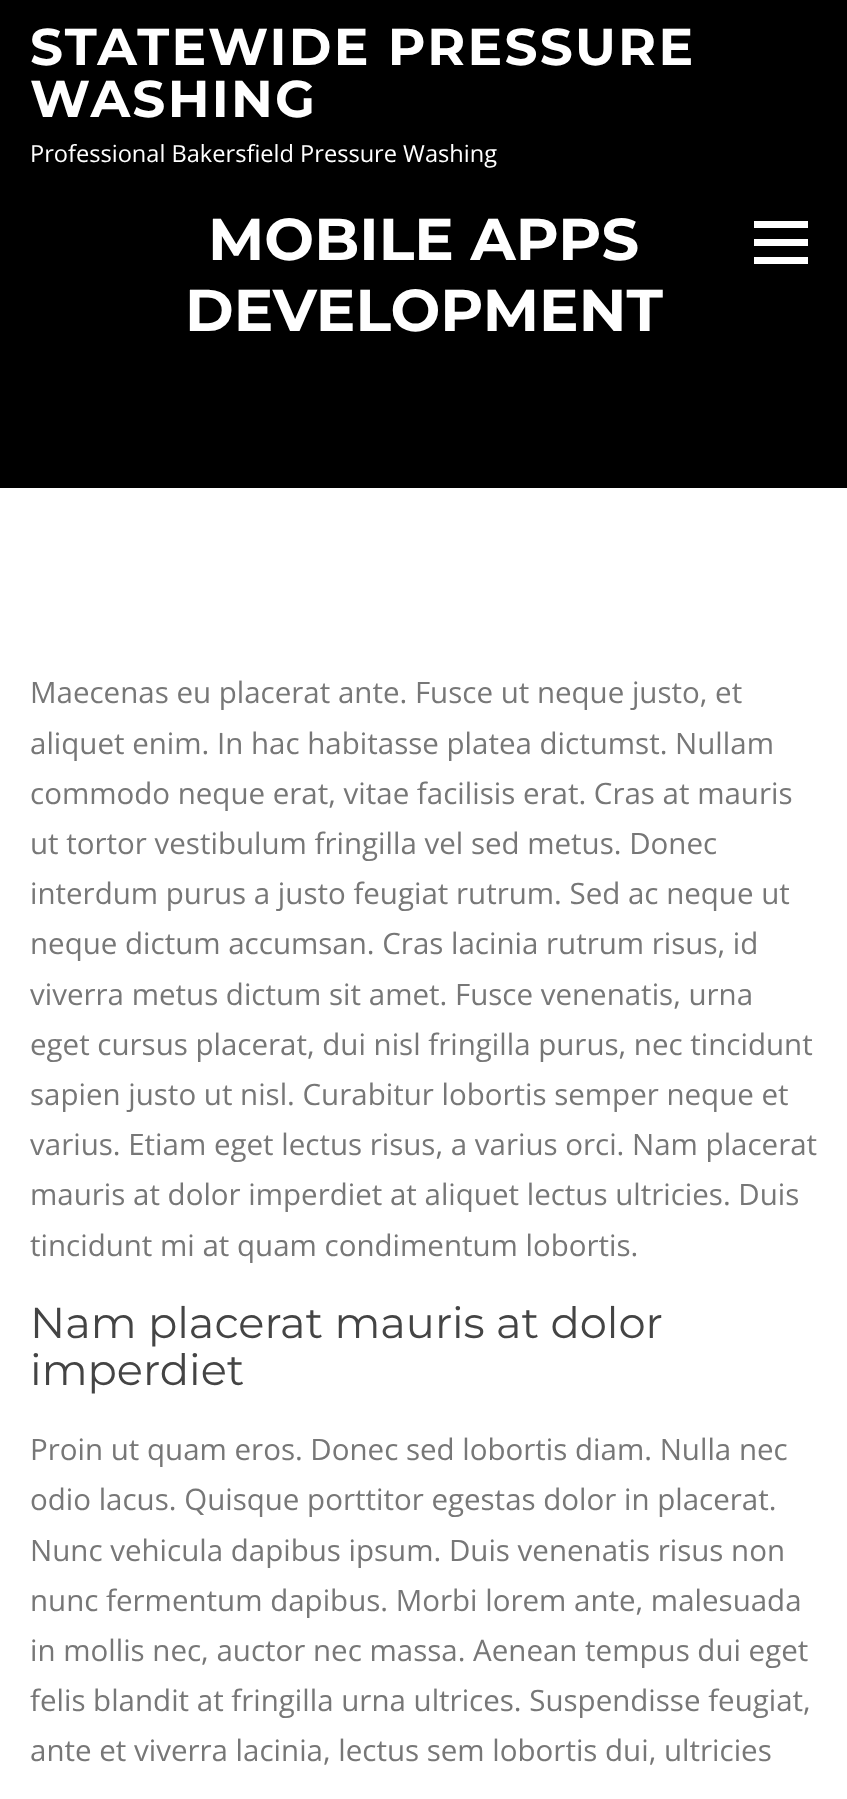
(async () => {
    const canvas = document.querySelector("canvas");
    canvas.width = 847;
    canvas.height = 1799;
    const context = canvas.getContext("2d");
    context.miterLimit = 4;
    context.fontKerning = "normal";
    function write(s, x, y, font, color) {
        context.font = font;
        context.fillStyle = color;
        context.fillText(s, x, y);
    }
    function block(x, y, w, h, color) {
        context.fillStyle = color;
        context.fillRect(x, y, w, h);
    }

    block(0, 0, 847, 1799, "rgb(255, 255, 255)");
    block(0, 0, 847, 488, "rgb(0, 0, 0)");
    context.letterSpacing = "2.25px";
    write("STATEWIDE PRESSURE", 30, 65, "bold 51.75px Montserrat", "rgb(255, 255, 255)");
    write("WASHING", 30, 117, "bold 51.75px Montserrat", "rgb(255, 255, 255)");
    context.letterSpacing = "0px";
    write("Professional Bakersfield Pressure Washing", 30, 162, "23.6px Open Sans", "rgb(255, 255, 255)");
    block(754, 239, 54, 7, "rgb(255, 255, 255)");
    block(754, 221, 54, 7, "rgb(255, 255, 255)");
    block(754, 257, 54, 7, "rgb(255, 255, 255)");
    write("MOBILE APPS", 208, 260, "bold 59px Montserrat", "rgb(255, 255, 255)");
    write("DEVELOPMENT", 185, 331, "bold 59px Montserrat", "rgb(255, 255, 255)");
    write("Maecenas eu placerat ante. Fusce ut neque justo, et", 30, 703, "29.5px Open Sans", "rgb(119, 119, 119)");
    write("aliquet enim. In hac habitasse platea dictumst. Nullam", 30, 754, "29.5px Open Sans", "rgb(119, 119, 119)");
    write("commodo neque erat, vitae facilisis erat. Cras at mauris", 30, 804, "29.5px Open Sans", "rgb(119, 119, 119)");
    write("ut tortor vestibulum fringilla vel sed metus. Donec", 30, 854, "29.5px Open Sans", "rgb(119, 119, 119)");
    write("interdum purus a justo feugiat rutrum. Sed ac neque ut", 30, 904, "29.5px Open Sans", "rgb(119, 119, 119)");
    write("neque dictum accumsan. Cras lacinia rutrum risus, id", 30, 954, "29.5px Open Sans", "rgb(119, 119, 119)");
    write("viverra metus dictum sit amet. Fusce venenatis, urna", 30, 1005, "29.5px Open Sans", "rgb(119, 119, 119)");
    write("eget cursus placerat, dui nisl fringilla purus, nec tincidunt", 30, 1055, "29.5px Open Sans", "rgb(119, 119, 119)");
    write("sapien justo ut nisl. Curabitur lobortis semper neque et", 30, 1105, "29.5px Open Sans", "rgb(119, 119, 119)");
    write("varius. Etiam eget lectus risus, a varius orci. Nam placerat", 30, 1155, "29.5px Open Sans", "rgb(119, 119, 119)");
    write("mauris at dolor imperdiet at aliquet lectus ultricies. Duis", 30, 1205, "29.5px Open Sans", "rgb(119, 119, 119)");
    write("tincidunt mi at quam condimentum lobortis.", 30, 1256, "29.5px Open Sans", "rgb(119, 119, 119)");
    write("Nam placerat mauris at dolor", 30, 1338, "43.25px Montserrat", "rgb(68, 68, 68)");
    write("imperdiet", 30, 1385, "43.25px Montserrat", "rgb(68, 68, 68)");
    write("Proin ut quam eros. Donec sed lobortis diam. Nulla nec", 30, 1460, "29.5px Open Sans", "rgb(119, 119, 119)");
    write("odio lacus. Quisque porttitor egestas dolor in placerat.", 30, 1510, "29.5px Open Sans", "rgb(119, 119, 119)");
    write("Nunc vehicula dapibus ipsum. Duis venenatis risus non", 30, 1561, "29.5px Open Sans", "rgb(119, 119, 119)");
    write("nunc fermentum dapibus. Morbi lorem ante, malesuada", 30, 1611, "29.5px Open Sans", "rgb(119, 119, 119)");
    write("in mollis nec, auctor nec massa. Aenean tempus dui eget", 30, 1661, "29.5px Open Sans", "rgb(119, 119, 119)");
    write("felis blandit at fringilla urna ultrices. Suspendisse feugiat,", 30, 1711, "29.5px Open Sans", "rgb(119, 119, 119)");
    write("ante et viverra lacinia, lectus sem lobortis dui, ultricies", 30, 1761, "29.5px Open Sans", "rgb(119, 119, 119)");
})();
